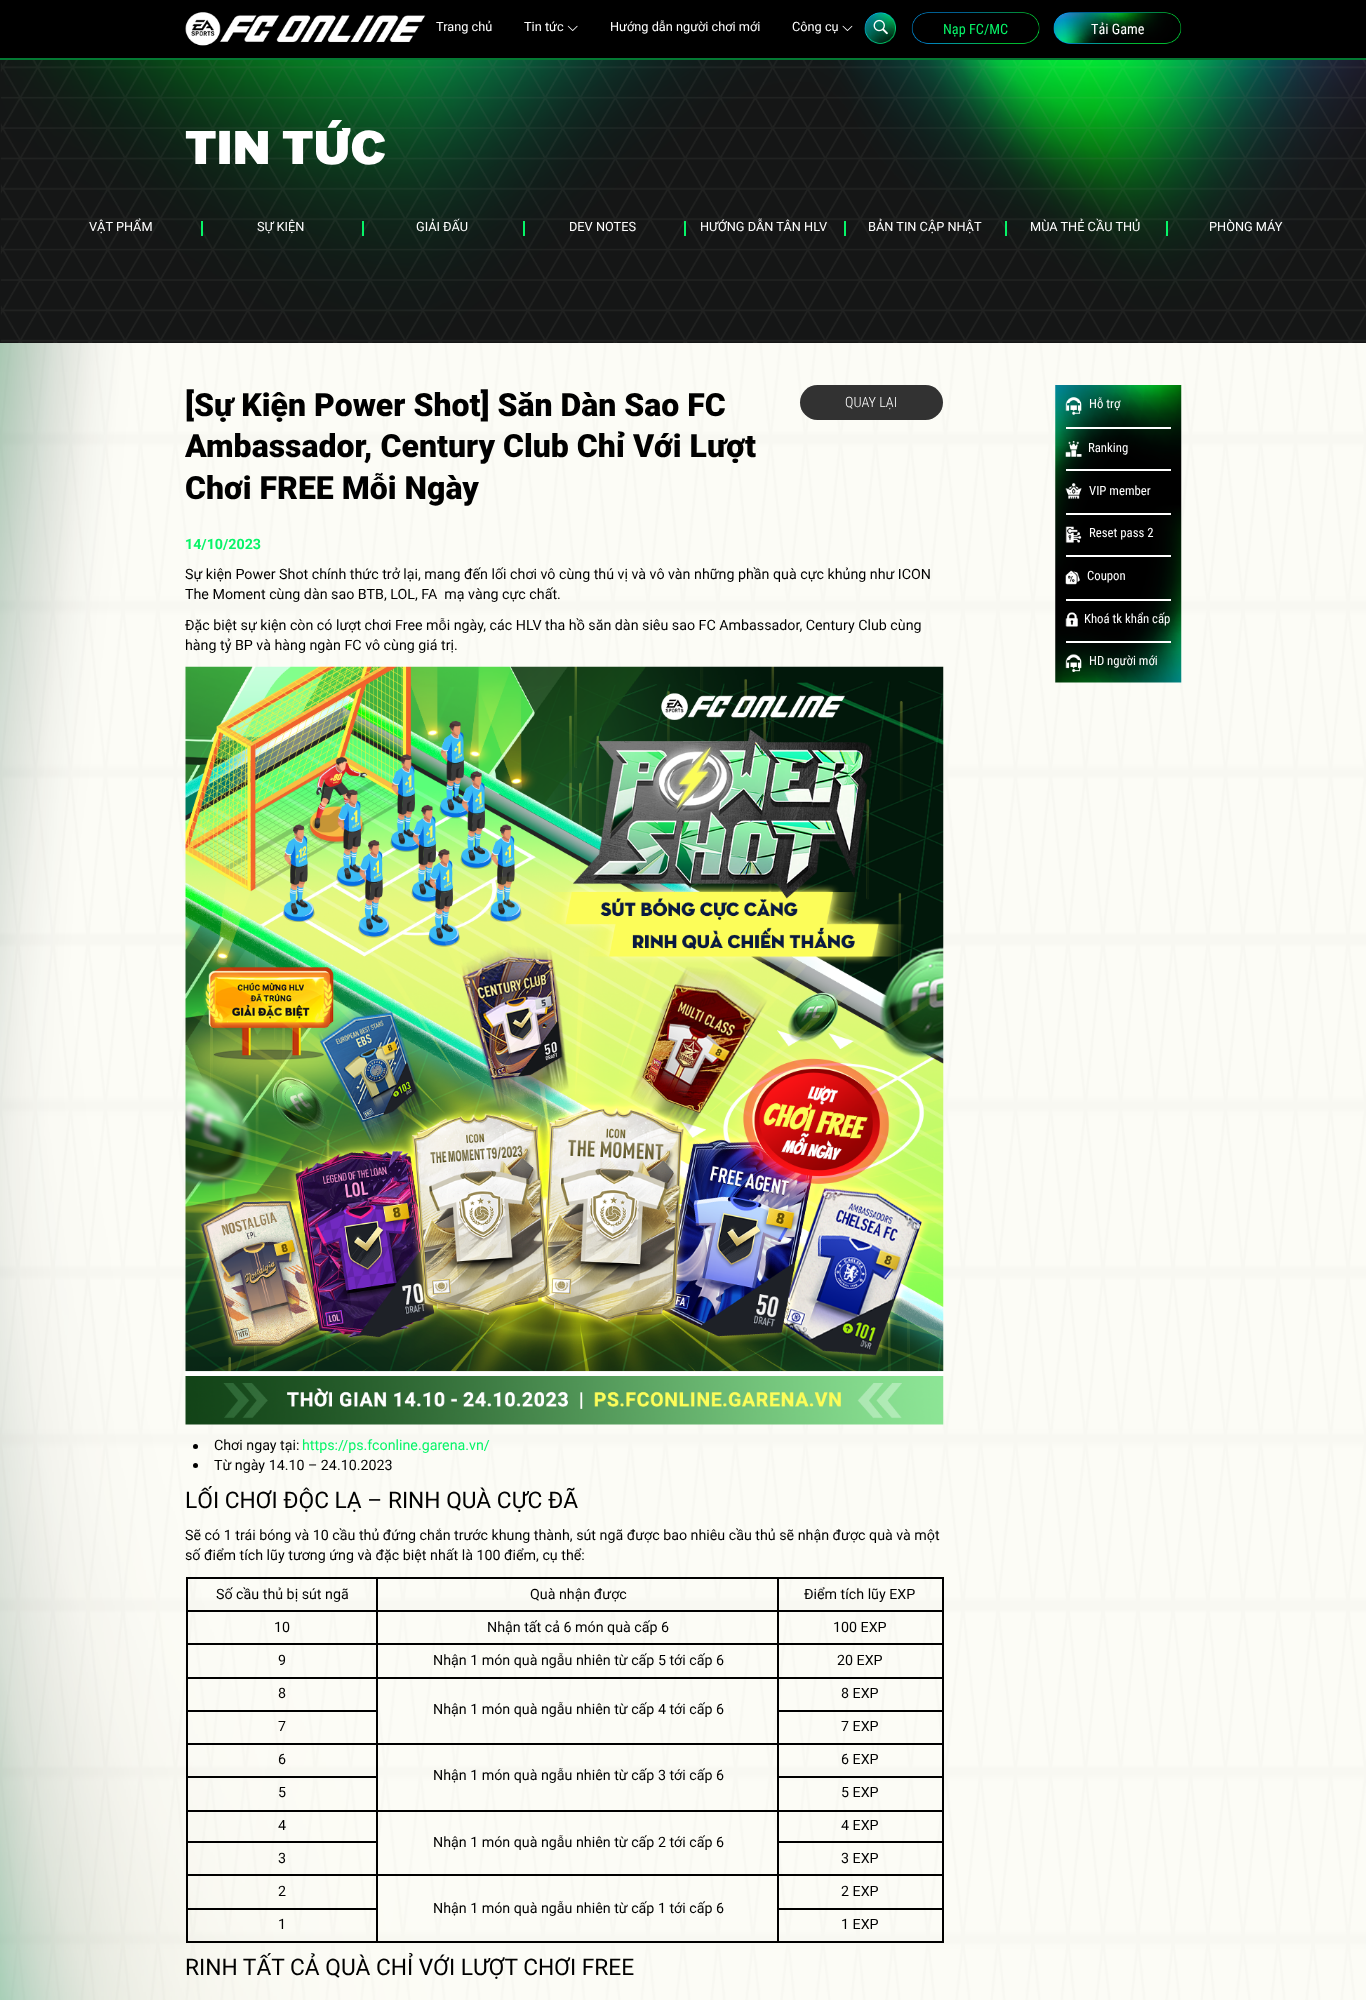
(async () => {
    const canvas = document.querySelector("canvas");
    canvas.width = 1366;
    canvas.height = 2000;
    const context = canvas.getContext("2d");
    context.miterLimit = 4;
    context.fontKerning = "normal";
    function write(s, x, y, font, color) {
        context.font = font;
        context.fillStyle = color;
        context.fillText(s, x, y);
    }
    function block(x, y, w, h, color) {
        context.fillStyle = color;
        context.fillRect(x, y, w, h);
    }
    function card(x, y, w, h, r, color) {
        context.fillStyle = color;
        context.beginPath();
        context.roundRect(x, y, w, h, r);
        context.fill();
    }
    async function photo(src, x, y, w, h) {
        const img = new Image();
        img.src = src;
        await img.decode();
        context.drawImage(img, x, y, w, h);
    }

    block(0, 0, 1366, 2000, "rgb(255, 255, 255)");
    block(0, 0, 1366, 58, "rgb(0, 0, 0)");
    block(0, 58, 1366, 2, "rgb(4, 122, 52)");
    await photo("media/1.png", 185, 12, 241, 34);
    write("Trang chủ", 436, 31, "12.75px Roboto", "rgb(255, 255, 255)");
    write("Tin tức", 524, 31, "12.75px Roboto", "rgb(255, 255, 255)");
    await photo("media/2.png", 567, 25, 11, 6);
    write("Hướng dẫn người chơi mới", 610, 31, "12.75px Roboto", "rgb(255, 255, 255)");
    write("Công cụ", 792, 31, "12.75px Roboto", "rgb(255, 255, 255)");
    await photo("media/3.png", 842, 25, 11, 6);
    await photo("media/4.png", 864, 12, 32, 32);
    await photo("media/5.png", 873, 19, 15, 16);
    await photo("media/6.png", 911, 12, 129, 32);
    write("Nạp FC/MC", 943, 34, "14.25px Roboto Condensed", "rgb(7, 244, 104)");
    await photo("media/7.png", 1053, 12, 129, 32);
    write("Tải Game", 1091, 34, "14.25px Roboto Condensed", "rgb(255, 255, 255)");
    await photo("media/8.png", 0, 60, 1366, 283);
    write("TIN TỨC", 185, 164, "900 48.5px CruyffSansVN", "rgb(255, 255, 255)");
    write("VẬT PHẨM", 89, 231, "12.75px Roboto", "rgb(255, 255, 255)");
    block(201, 221, 2, 15, "rgb(7, 244, 104)");
    write("SỰ KIỆN", 257, 231, "12.75px Roboto", "rgb(255, 255, 255)");
    block(362, 221, 2, 15, "rgb(7, 244, 104)");
    write("GIẢI ĐẤU", 416, 231, "12.75px Roboto", "rgb(255, 255, 255)");
    block(523, 221, 2, 15, "rgb(7, 244, 104)");
    write("DEV NOTES", 569, 231, "12.75px Roboto", "rgb(255, 255, 255)");
    block(684, 221, 2, 15, "rgb(7, 244, 104)");
    write("HƯỚNG DẪN TÂN HLV", 700, 231, "12.75px Roboto", "rgb(255, 255, 255)");
    block(844, 221, 2, 15, "rgb(7, 244, 104)");
    write("BẢN TIN CẬP NHẬT", 868, 231, "12.75px Roboto", "rgb(255, 255, 255)");
    block(1005, 221, 2, 15, "rgb(7, 244, 104)");
    write("MÙA THẺ CẦU THỦ", 1030, 231, "12.75px Roboto", "rgb(255, 255, 255)");
    block(1166, 221, 2, 15, "rgb(7, 244, 104)");
    write("PHÒNG MÁY", 1209, 231, "12.75px Roboto", "rgb(255, 255, 255)");
    await photo("media/9.png", 0, 343, 1366, 1657);
    write("[Sự Kiện Power Shot] Săn Dàn Sao FC", 185, 416, "900 32px Roboto", "rgb(0, 0, 0)");
    write("Ambassador, Century Club Chỉ Với Lượt", 185, 457, "900 32px Roboto", "rgb(0, 0, 0)");
    write("Chơi FREE Mỗi Ngày", 185, 499, "900 32px Roboto", "rgb(0, 0, 0)");
    card(800, 385, 143, 35, 17.5, "rgb(50, 50, 50)");
    write("QUAY LẠI", 845, 407, "300 14.25px Roboto Condensed", "rgb(255, 255, 255)");
    write("14/10/2023", 185, 549, "bold 14.25px Roboto", "rgb(7, 244, 104)");
    write("Sự kiện Power Shot chính thức trở lại, mang đến lối chơi vô cùng thú vị và vô vàn những phần quà cực khủng như ICON", 185, 579, "14.25px Roboto", "rgb(0, 0, 0)");
    write("The Moment cùng dàn sao BTB, LOL, FA  mạ vàng cực chất.", 185, 599, "14.25px Roboto", "rgb(0, 0, 0)");
    write("Đặc biệt sự kiện còn có lượt chơi Free mỗi ngày, các HLV tha hồ săn dàn siêu sao FC Ambassador, Century Club cùng", 185, 630, "14.25px Roboto", "rgb(0, 0, 0)");
    write("hàng tỷ BP và hàng ngàn FC vô cùng giá trị.", 185, 650, "14.25px Roboto", "rgb(0, 0, 0)");
    await photo("media/10.png", 185, 666, 759, 759);
    context.beginPath();
    context.arc(195.5, 1446.5, 2.5, 0, Math.PI * 2);
    context.fill();
    write("Chơi ngay tại:", 214, 1450, "14.25px Roboto", "rgb(0, 0, 0)");
    write("https://ps.fconline.garena.vn/", 302, 1450, "14.25px Roboto", "rgb(7, 244, 104)");
    context.fillStyle = "rgb(0, 0, 0)";
    context.beginPath();
    context.arc(195.5, 1465.5, 2.5, 0, Math.PI * 2);
    context.fill();
    write("Từ ngày 14.10 – 24.10.2023", 214, 1470, "14.25px Roboto", "rgb(0, 0, 0)");
    write("LỐI CHƠI ĐỘC LẠ – RINH QUÀ CỰC ĐÃ", 185, 1508, "22.75px Roboto", "rgb(0, 0, 0)");
    write("Sẽ có 1 trái bóng và 10 cầu thủ đứng chắn trước khung thành, sút ngã được bao nhiêu cầu thủ sẽ nhận được quà và một", 185, 1540, "14.25px Roboto", "rgb(0, 0, 0)");
    write("số điểm tích lũy tương ứng và đặc biệt nhất là 100 điểm, cụ thể:", 185, 1560, "14.25px Roboto", "rgb(0, 0, 0)");
    block(186, 1577, 757, 2, "rgb(0, 0, 0)");
    block(942, 1577, 2, 366, "rgb(0, 0, 0)");
    block(186, 1941, 757, 2, "rgb(0, 0, 0)");
    block(186, 1577, 2, 366, "rgb(0, 0, 0)");
    write("Số cầu thủ bị sút ngã", 216, 1599, "14.25px Roboto", "rgb(0, 0, 0)");
    block(777, 1610, 166, 2, "rgb(0, 0, 0)");
    block(777, 1643, 166, 2, "rgb(0, 0, 0)");
    block(777, 1677, 166, 2, "rgb(0, 0, 0)");
    block(777, 1710, 166, 2, "rgb(0, 0, 0)");
    block(777, 1743, 166, 2, "rgb(0, 0, 0)");
    block(777, 1776, 166, 2, "rgb(0, 0, 0)");
    block(777, 1810, 166, 2, "rgb(0, 0, 0)");
    block(777, 1841, 166, 2, "rgb(0, 0, 0)");
    block(777, 1874, 166, 2, "rgb(0, 0, 0)");
    block(777, 1908, 166, 2, "rgb(0, 0, 0)");
    block(777, 1908, 2, 35, "rgb(0, 0, 0)");
    block(777, 1874, 2, 35, "rgb(0, 0, 0)");
    block(376, 1874, 403, 2, "rgb(0, 0, 0)");
    block(777, 1841, 2, 35, "rgb(0, 0, 0)");
    block(777, 1810, 2, 33, "rgb(0, 0, 0)");
    block(376, 1810, 403, 2, "rgb(0, 0, 0)");
    block(777, 1776, 2, 35, "rgb(0, 0, 0)");
    block(777, 1743, 2, 35, "rgb(0, 0, 0)");
    block(376, 1743, 403, 2, "rgb(0, 0, 0)");
    block(777, 1710, 2, 35, "rgb(0, 0, 0)");
    block(777, 1677, 2, 35, "rgb(0, 0, 0)");
    block(376, 1677, 403, 2, "rgb(0, 0, 0)");
    block(777, 1643, 2, 35, "rgb(0, 0, 0)");
    block(376, 1643, 403, 2, "rgb(0, 0, 0)");
    block(777, 1610, 2, 35, "rgb(0, 0, 0)");
    block(376, 1610, 403, 2, "rgb(0, 0, 0)");
    block(186, 1710, 192, 2, "rgb(0, 0, 0)");
    block(186, 1776, 192, 2, "rgb(0, 0, 0)");
    block(186, 1841, 192, 2, "rgb(0, 0, 0)");
    block(186, 1908, 192, 2, "rgb(0, 0, 0)");
    block(376, 1874, 2, 69, "rgb(0, 0, 0)");
    block(186, 1874, 192, 2, "rgb(0, 0, 0)");
    block(376, 1810, 2, 66, "rgb(0, 0, 0)");
    block(186, 1810, 192, 2, "rgb(0, 0, 0)");
    block(376, 1743, 2, 68, "rgb(0, 0, 0)");
    block(186, 1743, 192, 2, "rgb(0, 0, 0)");
    block(376, 1677, 2, 68, "rgb(0, 0, 0)");
    block(186, 1677, 192, 2, "rgb(0, 0, 0)");
    block(376, 1643, 2, 35, "rgb(0, 0, 0)");
    block(186, 1643, 192, 2, "rgb(0, 0, 0)");
    block(376, 1610, 2, 35, "rgb(0, 0, 0)");
    block(186, 1610, 192, 2, "rgb(0, 0, 0)");
    block(376, 1577, 2, 35, "rgb(0, 0, 0)");
    write("Quà nhận được", 530, 1599, "14.25px Roboto", "rgb(0, 0, 0)");
    block(777, 1577, 2, 35, "rgb(0, 0, 0)");
    write("Điểm tích lũy EXP", 804, 1599, "14.25px Roboto", "rgb(0, 0, 0)");
    write("10", 274, 1632, "14.25px Roboto", "rgb(0, 0, 0)");
    write("Nhận tất cả 6 món quà cấp 6", 487, 1632, "14.25px Roboto", "rgb(0, 0, 0)");
    write("100 EXP", 833, 1632, "14.25px Roboto", "rgb(0, 0, 0)");
    write("9", 278, 1665, "14.25px Roboto", "rgb(0, 0, 0)");
    write("Nhận 1 món quà ngẫu nhiên từ cấp 5 tới cấp 6", 433, 1665, "14.25px Roboto", "rgb(0, 0, 0)");
    write("20 EXP", 837, 1665, "14.25px Roboto", "rgb(0, 0, 0)");
    write("8", 278, 1698, "14.25px Roboto", "rgb(0, 0, 0)");
    write("8 EXP", 841, 1698, "14.25px Roboto", "rgb(0, 0, 0)");
    write("Nhận 1 món quà ngẫu nhiên từ cấp 4 tới cấp 6", 433, 1714, "14.25px Roboto", "rgb(0, 0, 0)");
    write("7", 278, 1731, "14.25px Roboto", "rgb(0, 0, 0)");
    write("7 EXP", 841, 1731, "14.25px Roboto", "rgb(0, 0, 0)");
    write("6", 278, 1764, "14.25px Roboto", "rgb(0, 0, 0)");
    write("6 EXP", 841, 1764, "14.25px Roboto", "rgb(0, 0, 0)");
    write("Nhận 1 món quà ngẫu nhiên từ cấp 3 tới cấp 6", 433, 1780, "14.25px Roboto", "rgb(0, 0, 0)");
    write("5", 278, 1797, "14.25px Roboto", "rgb(0, 0, 0)");
    write("5 EXP", 841, 1797, "14.25px Roboto", "rgb(0, 0, 0)");
    write("4", 278, 1830, "14.25px Roboto", "rgb(0, 0, 0)");
    write("4 EXP", 841, 1830, "14.25px Roboto", "rgb(0, 0, 0)");
    write("Nhận 1 món quà ngẫu nhiên từ cấp 2 tới cấp 6", 433, 1847, "14.25px Roboto", "rgb(0, 0, 0)");
    write("3", 278, 1863, "14.25px Roboto", "rgb(0, 0, 0)");
    write("3 EXP", 841, 1863, "14.25px Roboto", "rgb(0, 0, 0)");
    write("2", 278, 1896, "14.25px Roboto", "rgb(0, 0, 0)");
    write("2 EXP", 841, 1896, "14.25px Roboto", "rgb(0, 0, 0)");
    write("Nhận 1 món quà ngẫu nhiên từ cấp 1 tới cấp 6", 433, 1913, "14.25px Roboto", "rgb(0, 0, 0)");
    write("1", 278, 1929, "14.25px Roboto", "rgb(0, 0, 0)");
    write("1 EXP", 841, 1929, "14.25px Roboto", "rgb(0, 0, 0)");
    write("RINH TẤT CẢ QUÀ CHỈ VỚI LƯỢT CHƠI FREE", 185, 1975, "22.75px Roboto", "rgb(0, 0, 0)");
    await photo("media/11.png", 1055, 385, 127, 298);
    await photo("media/12.png", 1065, 397, 17, 18);
    write("Hỗ trợ", 1089, 408, "12.75px Roboto Condensed", "rgb(255, 255, 255)");
    block(1066, 427, 105, 2, "rgb(255, 255, 255)");
    await photo("media/13.png", 1065, 441, 17, 16);
    write("Ranking", 1088, 452, "12.75px Roboto Condensed", "rgb(255, 255, 255)");
    block(1066, 469, 105, 2, "rgb(255, 255, 255)");
    await photo("media/14.png", 1065, 483, 17, 16);
    write("VIP member", 1089, 495, "12.75px Roboto Condensed", "rgb(255, 255, 255)");
    block(1066, 513, 105, 2, "rgb(255, 255, 255)");
    await photo("media/15.png", 1065, 526, 17, 17);
    write("Reset pass 2", 1089, 537, "12.75px Roboto Condensed", "rgb(255, 255, 255)");
    block(1066, 555, 105, 2, "rgb(255, 255, 255)");
    await photo("media/16.png", 1065, 570, 15, 15);
    write("Coupon", 1087, 580, "12.75px Roboto Condensed", "rgb(255, 255, 255)");
    block(1066, 599, 105, 2, "rgb(255, 255, 255)");
    await photo("media/17.png", 1065, 612, 13, 15);
    write("Khoá tk khẩn cấp", 1084, 623, "12.75px Roboto Condensed", "rgb(255, 255, 255)");
    block(1066, 641, 105, 2, "rgb(255, 255, 255)");
    await photo("media/18.png", 1065, 654, 17, 18);
    write("HD người mới", 1089, 665, "12.75px Roboto Condensed", "rgb(255, 255, 255)");
})();
